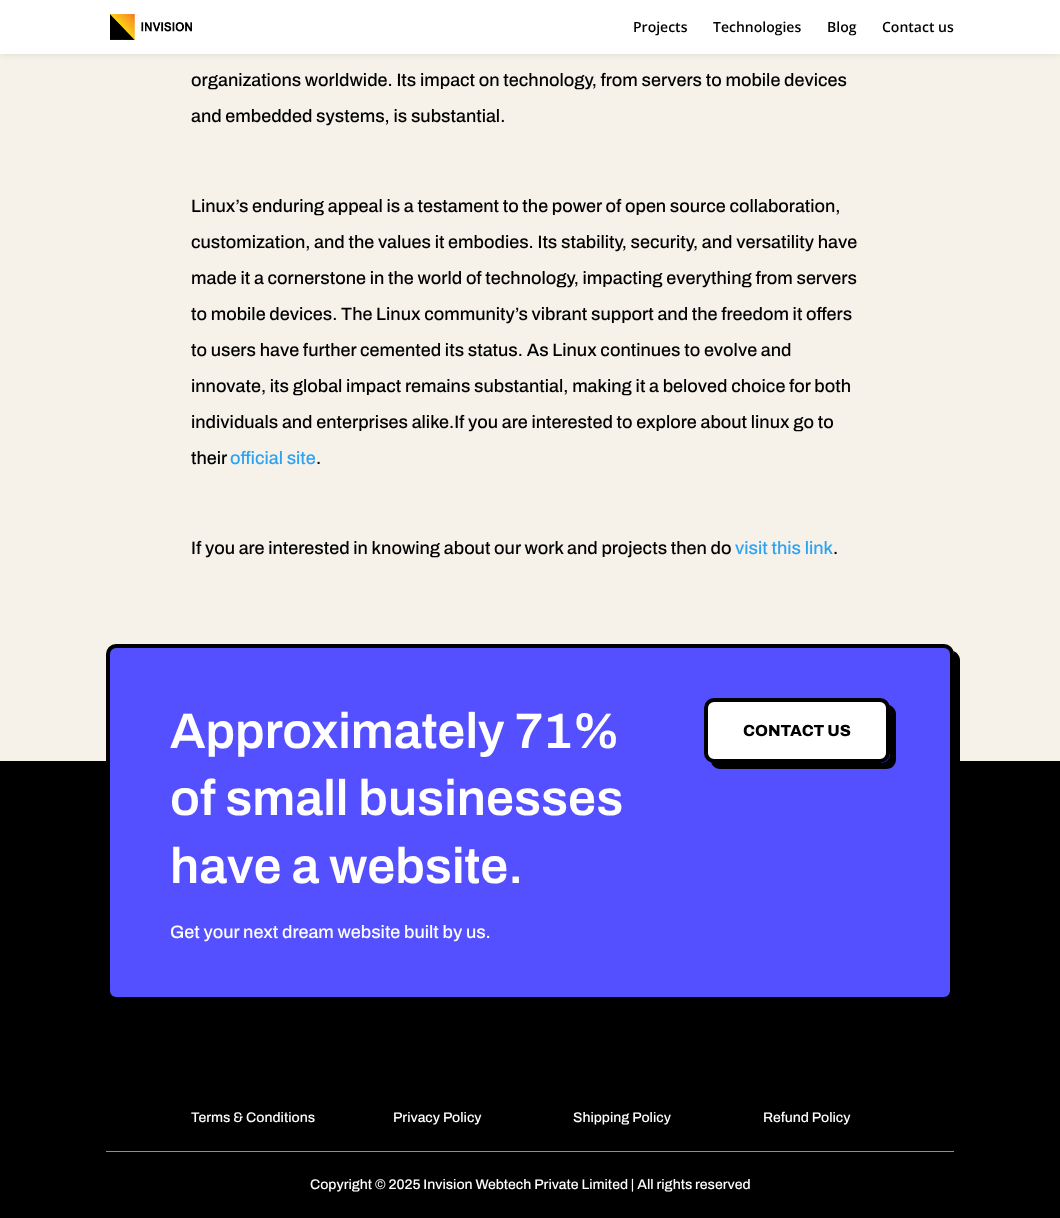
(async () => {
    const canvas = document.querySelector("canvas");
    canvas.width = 1060;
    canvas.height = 1218;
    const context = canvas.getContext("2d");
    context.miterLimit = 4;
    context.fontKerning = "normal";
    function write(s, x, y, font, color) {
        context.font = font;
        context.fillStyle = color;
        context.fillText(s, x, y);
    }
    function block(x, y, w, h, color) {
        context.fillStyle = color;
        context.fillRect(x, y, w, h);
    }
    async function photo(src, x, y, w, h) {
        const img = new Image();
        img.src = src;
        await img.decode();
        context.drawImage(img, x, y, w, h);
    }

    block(0, 0, 1060, 1218, "rgb(246, 242, 234)");
    context.fillStyle = "rgba(0, 0, 0, 0.1)";
    context.filter = "blur(3.5px)";
    context.beginPath();
    context.rect(0, 0, 1060, 54);
    context.fill();
    context.filter = "none";
    block(0, 0, 1060, 54, "rgb(255, 255, 255)");
    await photo("media/1.png", 110, 14, 82, 26);
    write("Projects", 633, 32, "600 14px Open Sans", "rgb(0, 0, 0)");
    write("Technologies", 713, 32, "600 14px Open Sans", "rgb(0, 0, 0)");
    write("Blog", 827, 32, "600 14px Open Sans", "rgb(0, 0, 0)");
    write("Contact us", 882, 32, "600 14px Open Sans", "rgb(0, 0, 0)");
    write("organizations worldwide. Its impact on technology, from servers to mobile devices", 191, 86, "500 18px Archivo", "rgb(0, 0, 0)");
    write("and embedded systems, is substantial.", 191, 122, "500 18px Archivo", "rgb(0, 0, 0)");
    write("Linux’s enduring appeal is a testament to the power of open source collaboration,", 191, 212, "500 18px Archivo", "rgb(0, 0, 0)");
    write("customization, and the values it embodies. Its stability, security, and versatility have", 191, 248, "500 18px Archivo", "rgb(0, 0, 0)");
    write("made it a cornerstone in the world of technology, impacting everything from servers", 191, 284, "500 18px Archivo", "rgb(0, 0, 0)");
    write("to mobile devices. The Linux community’s vibrant support and the freedom it offers", 191, 320, "500 18px Archivo", "rgb(0, 0, 0)");
    write("to users have further cemented its status. As Linux continues to evolve and", 191, 356, "500 18px Archivo", "rgb(0, 0, 0)");
    write("innovate, its global impact remains substantial, making it a beloved choice for both", 191, 392, "500 18px Archivo", "rgb(0, 0, 0)");
    write("individuals and enterprises alike.If you are interested to explore about linux go to", 191, 428, "500 18px Archivo", "rgb(0, 0, 0)");
    write("their", 191, 464, "500 18px Archivo", "rgb(0, 0, 0)");
    write("official site", 230, 464, "500 18px Archivo", "rgb(46, 163, 242)");
    write(".", 316, 464, "500 18px Archivo", "rgb(0, 0, 0)");
    write("If you are interested in knowing about our work and projects then do", 191, 554, "500 18px Archivo", "rgb(0, 0, 0)");
    write("visit this link", 735, 554, "500 18px Archivo", "rgb(46, 163, 242)");
    write(".", 833, 554, "500 18px Archivo", "rgb(0, 0, 0)");
    block(0, 761, 1060, 457, "rgb(0, 0, 0)");
    context.beginPath();
    context.moveTo(113, 1000);
    context.bezierCurveTo(114, 1004, 118, 1007, 122, 1007);
    context.lineTo(950, 1007);
    context.bezierCurveTo(956, 1007, 960, 1003, 960, 997);
    context.lineTo(960, 660);
    context.bezierCurveTo(960, 656, 957, 652, 953, 651);
    context.lineTo(954, 654);
    context.lineTo(954, 991);
    context.bezierCurveTo(954, 997, 950, 1001, 944, 1001);
    context.lineTo(116, 1001);
    context.closePath();
    context.fill();
    context.fillStyle = "rgb(84, 79, 255)";
    context.beginPath();
    context.roundRect(108, 646, 844, 353, 8);
    context.fill();
    context.strokeStyle = "rgb(0, 0, 0)";
    context.lineWidth = 4;
    context.stroke();
    write("Approximately 71%", 170, 748, "600 50px Archivo", "rgb(255, 255, 255)");
    write("of small businesses", 170, 815, "600 50px Archivo", "rgb(255, 255, 255)");
    write("have a website.", 170, 883, "600 50px Archivo", "rgb(255, 255, 255)");
    write("Get your next dream website built by us.", 170, 938, "500 18px Archivo", "rgb(255, 255, 255)");
    context.fillStyle = "rgb(0, 0, 0)";
    context.beginPath();
    context.moveTo(711, 762);
    context.bezierCurveTo(712, 766, 716, 769, 720, 769);
    context.lineTo(886, 769);
    context.bezierCurveTo(892, 769, 896, 765, 896, 759);
    context.lineTo(896, 714);
    context.bezierCurveTo(896, 710, 893, 706, 889, 705);
    context.lineTo(890, 708);
    context.lineTo(890, 753);
    context.bezierCurveTo(890, 759, 886, 763, 880, 763);
    context.lineTo(714, 763);
    context.closePath();
    context.fill();
    context.fillStyle = "rgb(255, 255, 255)";
    context.beginPath();
    context.roundRect(706, 700, 182, 61, 8);
    context.fill();
    context.stroke();
    write("CONTACT US", 743, 736, "800 16px Archivo", "rgb(0, 0, 0)");
    write("Terms & Conditions", 191, 1122, "500 14px Archivo", "rgb(255, 255, 255)");
    write("Privacy Policy", 393, 1122, "500 14px Archivo", "rgb(255, 255, 255)");
    write("Shipping Policy", 573, 1122, "500 14px Archivo", "rgb(255, 255, 255)");
    write("Refund Policy", 763, 1122, "500 14px Archivo", "rgb(255, 255, 255)");
    block(106, 1151, 848, 1, "rgb(143, 143, 143)");
    write("Copyright © 2025 Invision Webtech Private Limited | All rights reserved", 310, 1189, "500 14px Archivo", "rgb(255, 255, 255)");
})();
